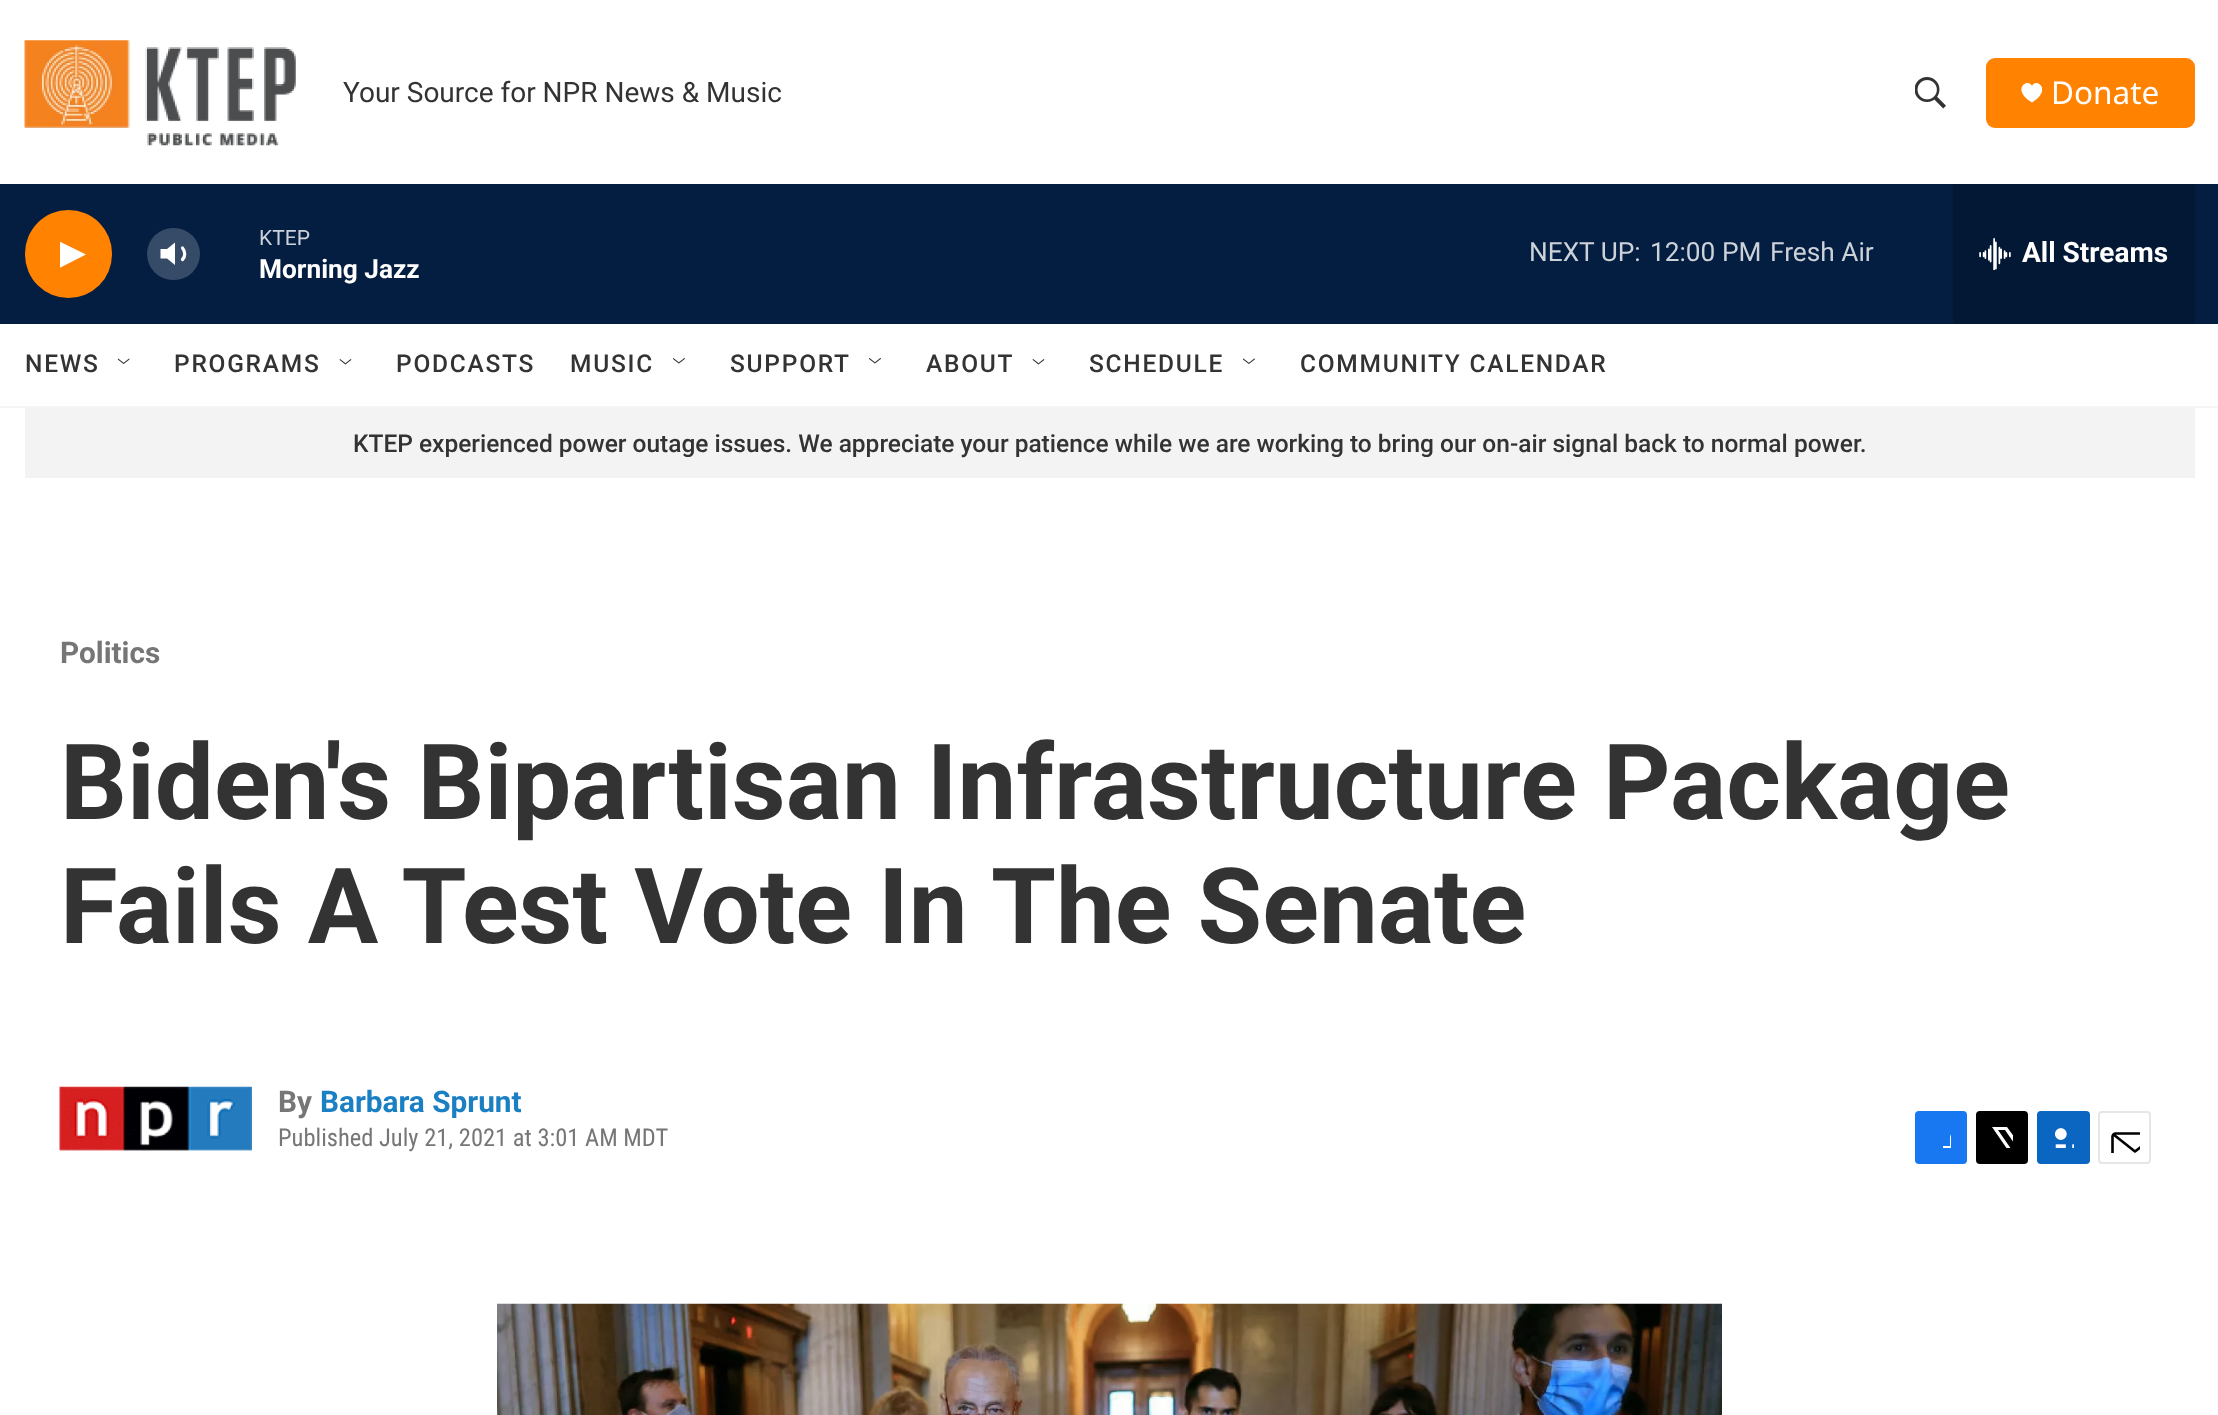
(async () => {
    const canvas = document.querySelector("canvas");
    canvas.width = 2218;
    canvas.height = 1415;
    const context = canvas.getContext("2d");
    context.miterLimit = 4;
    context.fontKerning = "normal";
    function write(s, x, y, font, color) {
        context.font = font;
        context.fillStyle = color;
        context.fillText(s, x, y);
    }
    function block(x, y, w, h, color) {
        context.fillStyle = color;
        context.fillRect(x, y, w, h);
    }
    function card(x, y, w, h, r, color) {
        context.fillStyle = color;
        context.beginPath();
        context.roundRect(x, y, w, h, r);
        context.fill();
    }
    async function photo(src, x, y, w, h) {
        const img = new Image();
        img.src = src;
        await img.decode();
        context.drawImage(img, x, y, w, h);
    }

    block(0, 0, 2218, 1415, "rgb(255, 255, 255)");
    block(0, 406, 2218, 2, "rgb(245, 245, 245)");
    await photo("media/1.png", 24, 40, 272, 106);
    write("Your Source for NPR News & Music", 343, 102, "28px Roboto", "rgb(51, 51, 51)");
    await photo("media/2.png", 1915, 77, 31, 32);
    card(1986, 58, 209, 70, 9, "rgb(255, 130, 0)");
    context.save();
    context.beginPath();
    context.rect(2021, 82, 21, 21);
    context.clip();
    context.fillStyle = "rgb(255, 255, 255)";
    context.beginPath();
    context.moveTo(2032, 86);
    context.bezierCurveTo(2028.5, 77, 2010, 89, 2032, 102.5);
    context.bezierCurveTo(2053.5, 89, 2035, 77, 2032, 86);
    context.closePath();
    context.fill();
    context.restore();
    write("Donate", 2051, 104, "31.5px Noto Sans", "rgb(255, 255, 255)");
    block(0, 184, 2218, 140, "rgb(4, 30, 66)");
    card(25, 210, 87, 88, 43.5, "rgb(255, 130, 0)");
    context.save();
    context.beginPath();
    context.rect(60, 238, 26, 33);
    context.clip();
    context.fillStyle = "rgb(255, 255, 255)";
    context.beginPath();
    context.moveTo(59.5, 241.5);
    context.lineTo(86, 254.5);
    context.lineTo(59.5, 268);
    context.closePath();
    context.fill();
    context.restore();
    context.fillStyle = "rgb(255, 255, 255)";
    context.beginPath();
    context.moveTo(175, 242.5);
    context.lineTo(167, 249);
    context.lineTo(160.5, 249);
    context.lineTo(160.5, 258.5);
    context.lineTo(167, 258.5);
    context.lineTo(175, 265);
    context.closePath();
    context.fill();
    context.beginPath();
    context.moveTo(182.5, 248);
    context.bezierCurveTo(185.5, 251.5, 185.5, 256.5, 182.5, 259.5);
    context.strokeStyle = "rgb(255, 255, 255)";
    context.lineWidth = 3.2;
    context.lineCap = "round";
    context.lineJoin = "round";
    context.stroke();
    card(147, 228, 53, 52, 26, "rgba(255, 255, 255, 0.2)");
    write("KTEP", 259, 245, "21px Roboto", "rgb(205, 210, 217)");
    write("Morning Jazz", 259, 278, "bold 26.25px 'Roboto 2'", "rgb(255, 255, 255)");
    write("NEXT UP:", 1529, 261, "26.25px Roboto", "rgb(205, 210, 217)");
    write("12:00 PM", 1650, 261, "26.25px Roboto", "rgb(205, 210, 217)");
    write("Fresh Air", 1770, 261, "26.25px Roboto", "rgb(205, 210, 217)");
    block(1953, 184, 242, 140, "rgb(3, 24, 53)");
    await photo("media/3.png", 1979, 238, 32, 32);
    write("All Streams", 2022, 262, "bold 28px 'Roboto 2'", "rgb(255, 255, 255)");
    context.letterSpacing = "1.75px";
    write("NEWS", 25, 372, "500 24.5px Roboto", "rgb(51, 51, 51)");
    await photo("media/4.png", 117, 358, 13, 6);
    write("PROGRAMS", 174, 372, "500 24.5px Roboto", "rgb(51, 51, 51)");
    await photo("media/5.png", 339, 359, 13, 6);
    write("PODCASTS", 396, 372, "500 24.5px Roboto", "rgb(51, 51, 51)");
    write("MUSIC", 570, 372, "500 24.5px Roboto", "rgb(51, 51, 51)");
    await photo("media/6.png", 673, 358, 12, 6);
    write("SUPPORT", 730, 372, "500 24.5px Roboto", "rgb(51, 51, 51)");
    await photo("media/7.png", 869, 358, 12, 6);
    write("ABOUT", 926, 372, "500 24.5px Roboto", "rgb(51, 51, 51)");
    await photo("media/8.png", 1032, 359, 13, 6);
    write("SCHEDULE", 1089, 372, "500 24.5px Roboto", "rgb(51, 51, 51)");
    await photo("media/9.png", 1243, 358, 12, 6);
    write("COMMUNITY CALENDAR", 1300, 372, "500 24.5px Roboto", "rgb(51, 51, 51)");
    block(25, 408, 2170, 70, "rgb(243, 243, 243)");
    context.letterSpacing = "0px";
    write("KTEP experienced power outage issues. We appreciate your patience while we are working to bring our on-air signal back to normal power.", 353, 452, "500 24.5px Roboto", "rgb(51, 51, 51)");
    write("Politics", 60, 663, "bold 29.75px Roboto", "rgb(118, 118, 118)");
    write("Biden's Bipartisan Infrastructure Package", 60, 819, "bold 105px Roboto", "rgb(51, 51, 51)");
    write("Fails A Test Vote In The Senate", 60, 943, "bold 105px Roboto", "rgb(51, 51, 51)");
    await photo("media/10.png", 59, 1086, 193, 66);
    write("By", 278, 1112, "bold 29.75px Roboto", "rgb(118, 118, 118)");
    write("Barbara Sprunt", 320, 1112, "bold 29.75px Roboto", "rgb(26, 127, 195)");
    write("Published July 21, 2021 at 3:01 AM MDT", 278, 1146, "24.5px Roboto Condensed", "rgb(118, 118, 118)");
    card(1915, 1111, 52, 53, 4, "rgb(23, 120, 242)");
    context.save();
    context.beginPath();
    context.rect(1930, 1127, 21, 21);
    context.clip();
    context.fillStyle = "rgb(255, 255, 255)";
    context.beginPath();
    context.moveTo(1959, 1164);
    context.lineTo(1950, 1164);
    context.lineTo(1950, 1155);
    context.lineTo(1943, 1155);
    context.lineTo(1943, 1146);
    context.lineTo(1950, 1146);
    context.lineTo(1950, 1137);
    context.bezierCurveTo(1952, 1128.5, 1960, 1127, 1967, 1128);
    context.lineTo(1967, 1136);
    context.bezierCurveTo(1957.5, 1136, 1959, 1138.5, 1959, 1146);
    context.lineTo(1967, 1146);
    context.lineTo(1967, 1150.5);
    context.lineTo(1966, 1155);
    context.lineTo(1959, 1155);
    context.closePath();
    context.fill();
    context.restore();
    card(1976, 1111, 52, 53, 4, "rgb(0, 0, 0)");
    context.save();
    context.beginPath();
    context.rect(1992, 1127, 21, 21);
    context.clip();
    context.fillStyle = "rgb(255, 255, 255)";
    context.beginPath();
    context.moveTo(2023, 1149);
    context.lineTo(2028, 1156.5);
    context.bezierCurveTo(2028, 1158.5, 2028.5, 1160.5, 2027.5, 1162);
    context.lineTo(2005, 1130);
    context.lineTo(1998, 1130);
    context.lineTo(2021.5, 1164);
    context.lineTo(2017.5, 1164);
    context.lineTo(2014, 1159);
    context.lineTo(2010, 1164);
    context.lineTo(2005, 1164);
    context.lineTo(2012, 1156);
    context.lineTo(1992, 1127);
    context.lineTo(2007, 1127);
    context.lineTo(2021, 1146);
    context.lineTo(2028, 1137.5);
    context.lineTo(2028, 1143);
    context.closePath();
    context.fill();
    context.restore();
    card(2037, 1111, 53, 53, 4, "rgb(10, 102, 193)");
    await photo("media/11.png", 2055, 1128, 19, 20);
    context.beginPath();
    context.roundRect(2099, 1112, 51, 51, 3);
    context.strokeStyle = "rgb(230, 230, 230)";
    context.lineWidth = 2;
    context.lineJoin = "miter";
    context.stroke();
    context.save();
    context.beginPath();
    context.rect(2109, 1122, 31, 31);
    context.clip();
    context.beginPath();
    context.moveTo(2157.5, 1160);
    context.bezierCurveTo(2157.5, 1162, 2156, 1163.5, 2154.5, 1163.5);
    context.lineTo(2115.5, 1163.5);
    context.bezierCurveTo(2114, 1163.5, 2112.5, 1162, 2112.5, 1160);
    context.lineTo(2112.5, 1136.5);
    context.bezierCurveTo(2112.5, 1135, 2114, 1133.5, 2115.5, 1133.5);
    context.lineTo(2154.5, 1133.5);
    context.bezierCurveTo(2156, 1133.5, 2157.5, 1135, 2157.5, 1136.5);
    context.closePath();
    context.moveTo(2156.5, 1134.5);
    context.lineTo(2135, 1151.5);
    context.lineTo(2113.5, 1134.5);
    context.strokeStyle = "rgb(0, 0, 0)";
    context.lineWidth = 2.6;
    context.lineJoin = "round";
    context.stroke();
    context.restore();
    await photo("media/12.png", 497, 1303, 1225, 112);
})();
